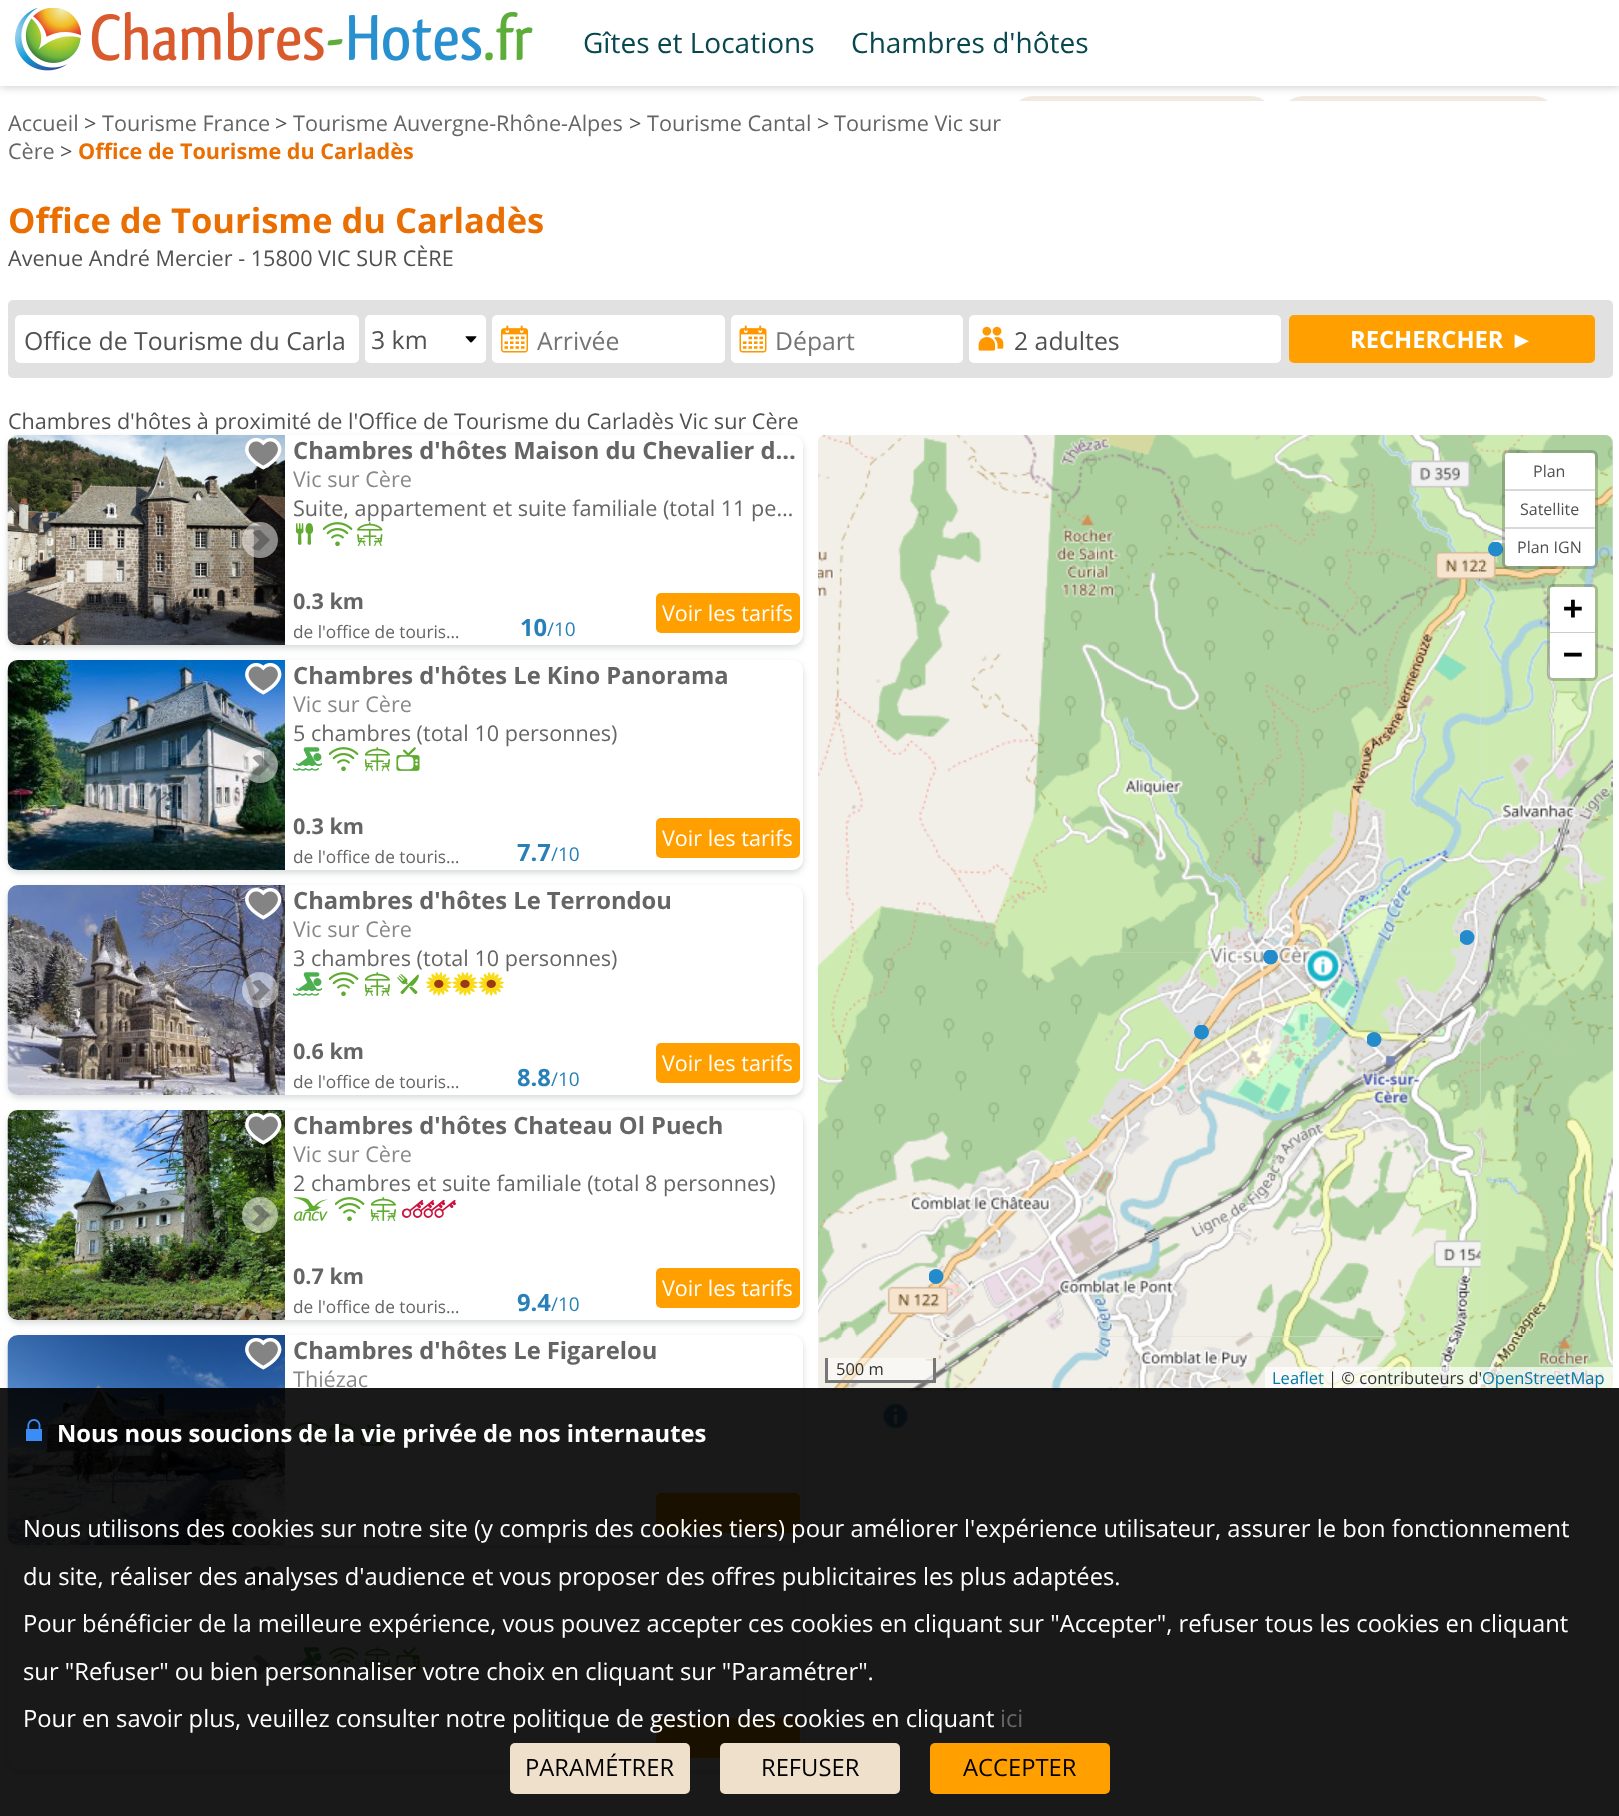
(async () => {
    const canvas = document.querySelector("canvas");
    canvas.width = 1619;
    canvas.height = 1816;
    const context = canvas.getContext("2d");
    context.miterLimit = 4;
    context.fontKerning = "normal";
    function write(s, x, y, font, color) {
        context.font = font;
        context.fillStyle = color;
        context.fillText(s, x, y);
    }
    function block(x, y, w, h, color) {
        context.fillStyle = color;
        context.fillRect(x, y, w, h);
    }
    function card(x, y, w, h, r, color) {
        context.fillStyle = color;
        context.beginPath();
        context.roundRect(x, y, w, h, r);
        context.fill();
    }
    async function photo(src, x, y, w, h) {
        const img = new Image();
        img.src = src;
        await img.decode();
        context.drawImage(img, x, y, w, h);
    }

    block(0, 0, 1619, 1816, "rgb(255, 255, 255)");
    context.fillStyle = "rgb(204, 204, 204)";
    context.filter = "blur(4px)";
    context.beginPath();
    context.rect(0, 2, 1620, 85);
    context.fill();
    context.filter = "none";
    block(0, 0, 1619, 86, "rgb(255, 255, 255)");
    await photo("media/1.png", 15, 8, 518, 63);
    write("Gîtes et Locations", 583, 53, "28px Open Sans", "rgb(7, 71, 79)");
    write("Chambres d'hôtes", 851, 53, "28px Open Sans", "rgb(7, 71, 79)");
    card(1010, 96, 264, 47, 23.5, "rgb(241, 234, 224)");
    card(1280, 96, 277, 47, 23.5, "rgb(241, 234, 224)");
    block(1010, 101, 547, 42, "rgb(255, 255, 255)");
    write("Accueil", 8, 131, "21.6px Open Sans", "rgb(101, 101, 101)");
    write(">", 84, 131, "21.6px Open Sans", "rgb(80, 80, 80)");
    write("Tourisme France", 102, 131, "21.6px Open Sans", "rgb(101, 101, 101)");
    write(">", 275, 131, "21.6px Open Sans", "rgb(80, 80, 80)");
    write("Tourisme Auvergne-Rhône-Alpes", 293, 131, "21.6px Open Sans", "rgb(101, 101, 101)");
    write(">", 629, 131, "21.6px Open Sans", "rgb(80, 80, 80)");
    write("Tourisme Cantal", 647, 131, "21.6px Open Sans", "rgb(101, 101, 101)");
    write(">", 817, 131, "21.6px Open Sans", "rgb(80, 80, 80)");
    write("Tourisme Vic sur", 834, 131, "21.6px Open Sans", "rgb(101, 101, 101)");
    write("Cère", 8, 159, "21.6px Open Sans", "rgb(101, 101, 101)");
    write(">", 60, 159, "21.6px Open Sans", "rgb(80, 80, 80)");
    write("Office de Tourisme du Carladès", 78, 159, "bold 21.6px Open Sans", "rgb(234, 111, 3)");
    write("Office de Tourisme du Carladès", 8, 233, "bold 34.5px Open Sans", "rgb(234, 111, 3)");
    write("Avenue André Mercier - 15800 VIC SUR CÈRE", 8, 266, "21.6px Open Sans", "rgb(80, 80, 80)");
    card(8, 300, 1605, 78, 5, "rgb(225, 225, 225)");
    card(15, 315, 344, 48, 5, "rgb(255, 255, 255)");
    write("Office de Tourisme du Carla", 24, 350, "24.8px Open Sans", "rgb(80, 80, 80)");
    card(365, 315, 121, 48, 5, "rgb(255, 255, 255)");
    await photo("media/2.png", 465, 336, 12, 7);
    write("3 km", 371, 349, "24.8px Open Sans", "rgb(80, 80, 80)");
    card(492, 315, 233, 48, 5, "rgb(255, 255, 255)");
    await photo("media/3.png", 501, 325, 27, 28);
    write("Arrivée", 537, 350, "24.8px Open Sans", "rgb(117, 117, 117)");
    card(731, 315, 232, 48, 5, "rgb(255, 255, 255)");
    await photo("media/4.png", 739, 325, 28, 28);
    write("Départ", 775, 350, "24.8px Open Sans", "rgb(117, 117, 117)");
    card(969, 315, 312, 48, 5, "rgb(255, 255, 255)");
    await photo("media/5.png", 978, 326, 26, 25);
    write("2 adultes", 1014, 350, "24.8px Open Sans", "rgb(80, 80, 80)");
    card(1289, 315, 306, 48, 5, "rgb(255, 160, 0)");
    write("RECHERCHER", 1350, 348, "bold 23.75px Open Sans", "rgb(255, 255, 255)");
    write("►", 1510, 348, "bold 23.75px Liberation Sans", "rgb(255, 255, 255)");
    write("Chambres d'hôtes à proximité de l'Office de Tourisme du Carladès Vic sur Cère", 8, 429, "21.6px Open Sans", "rgb(80, 80, 80)");
    context.fillStyle = "rgba(6, 31, 24, 0.16)";
    context.filter = "blur(3px)";
    context.beginPath();
    context.roundRect(8, 438, 795, 210, 11);
    context.fill();
    context.filter = "none";
    card(8, 435, 795, 210, 11, "rgb(255, 255, 255)");
    await photo("media/6.png", 7, 435, 278, 210);
    await photo("media/7.png", 245, 438, 37, 32);
    context.fillStyle = "rgba(255, 255, 255, 0.5)";
    context.beginPath();
    context.arc(260, 540, 18, 0, Math.PI * 2);
    context.fill();
    context.fillStyle = "rgba(64, 64, 64, 0.5)";
    context.beginPath();
    context.moveTo(259.5, 530);
    context.bezierCurveTo(256.5, 530, 254, 531, 252.5, 533);
    context.lineTo(259.5, 540);
    context.lineTo(252, 547.5);
    context.bezierCurveTo(254.5, 550.5, 256, 550.5, 259.5, 550.5);
    context.lineTo(270, 540);
    context.lineTo(260, 530);
    context.closePath();
    context.fill();
    write("Chambres d'hôtes Maison du Chevalier d…", 293, 459, "bold 23.75px Open Sans", "rgb(101, 101, 101)");
    write("Vic sur Cère", 293, 487, "21.6px Open Sans", "rgb(136, 136, 136)");
    write("Suite, appartement et suite familiale (total 11 pe…", 293, 516, "21.6px Open Sans", "rgb(101, 101, 101)");
    await photo("media/8.png", 295, 523, 19, 22);
    await photo("media/9.png", 323, 522, 30, 24);
    await photo("media/10.png", 357, 522, 26, 24);
    write("0.3 km", 293, 609, "bold 21.6px Open Sans", "rgb(101, 101, 101)");
    write("de l'office de touris…", 293, 638, "17.25px Open Sans", "rgb(101, 101, 101)");
    card(656, 593, 144, 40, 5, "rgb(255, 160, 0)");
    write("Voir les tarifs", 662, 621, "21.6px Open Sans", "rgb(255, 255, 255)");
    write("10", 520, 636, "bold 23.75px Open Sans", "rgb(41, 128, 185)");
    write("/10", 547, 636, "19px Open Sans", "rgb(41, 128, 185)");
    context.fillStyle = "rgba(6, 31, 24, 0.16)";
    context.filter = "blur(3px)";
    context.beginPath();
    context.roundRect(8, 663, 795, 210, 11);
    context.fill();
    context.filter = "none";
    card(8, 660, 795, 210, 11, "rgb(255, 255, 255)");
    await photo("media/11.png", 7, 660, 278, 210);
    await photo("media/12.png", 245, 662, 37, 33);
    context.fillStyle = "rgba(255, 255, 255, 0.5)";
    context.beginPath();
    context.arc(260, 765, 18, 0, Math.PI * 2);
    context.fill();
    context.fillStyle = "rgba(64, 64, 64, 0.5)";
    context.beginPath();
    context.moveTo(259.5, 755);
    context.bezierCurveTo(256.5, 755, 254, 756, 252.5, 758);
    context.lineTo(259.5, 765);
    context.lineTo(252, 772.5);
    context.bezierCurveTo(254.5, 775.5, 256, 775.5, 259.5, 775.5);
    context.lineTo(270, 765);
    context.lineTo(260, 755);
    context.closePath();
    context.fill();
    write("Chambres d'hôtes Le Kino Panorama", 293, 684, "bold 23.75px Open Sans", "rgb(101, 101, 101)");
    write("Vic sur Cère", 293, 712, "21.6px Open Sans", "rgb(136, 136, 136)");
    write("5 chambres (total 10 personnes)", 293, 741, "21.6px Open Sans", "rgb(101, 101, 101)");
    await photo("media/13.png", 293, 747, 30, 24);
    await photo("media/9.png", 329, 747, 30, 24);
    await photo("media/14.png", 365, 747, 25, 24);
    await photo("media/15.png", 396, 747, 24, 24);
    write("0.3 km", 293, 834, "bold 21.6px Open Sans", "rgb(101, 101, 101)");
    write("de l'office de touris…", 293, 863, "17.25px Open Sans", "rgb(101, 101, 101)");
    card(656, 818, 144, 40, 5, "rgb(255, 160, 0)");
    write("Voir les tarifs", 662, 846, "21.6px Open Sans", "rgb(255, 255, 255)");
    write("7.7", 517, 861, "bold 23.75px Open Sans", "rgb(41, 128, 185)");
    write("/10", 551, 861, "19px Open Sans", "rgb(41, 128, 185)");
    context.fillStyle = "rgba(6, 31, 24, 0.16)";
    context.filter = "blur(3px)";
    context.beginPath();
    context.roundRect(8, 888, 795, 210, 11);
    context.fill();
    context.filter = "none";
    card(8, 885, 795, 210, 11, "rgb(255, 255, 255)");
    await photo("media/16.png", 7, 885, 278, 210);
    await photo("media/17.png", 245, 887, 37, 33);
    context.fillStyle = "rgba(255, 255, 255, 0.5)";
    context.beginPath();
    context.arc(260, 990, 18, 0, Math.PI * 2);
    context.fill();
    context.fillStyle = "rgba(64, 64, 64, 0.5)";
    context.beginPath();
    context.moveTo(259.5, 980);
    context.bezierCurveTo(256.5, 980, 254, 981, 252.5, 983);
    context.lineTo(259.5, 990);
    context.lineTo(252, 997.5);
    context.bezierCurveTo(254.5, 1000.5, 256, 1000.5, 259.5, 1000.5);
    context.lineTo(270, 990);
    context.lineTo(260, 980);
    context.closePath();
    context.fill();
    write("Chambres d'hôtes Le Terrondou", 293, 909, "bold 23.75px Open Sans", "rgb(101, 101, 101)");
    write("Vic sur Cère", 293, 937, "21.6px Open Sans", "rgb(136, 136, 136)");
    write("3 chambres (total 10 personnes)", 293, 966, "21.6px Open Sans", "rgb(101, 101, 101)");
    await photo("media/13.png", 293, 972, 30, 24);
    await photo("media/9.png", 329, 972, 30, 24);
    await photo("media/14.png", 365, 972, 25, 24);
    await photo("media/18.png", 397, 974, 22, 21);
    await photo("media/19.png", 426, 972, 78, 24);
    write("0.6 km", 293, 1059, "bold 21.6px Open Sans", "rgb(101, 101, 101)");
    write("de l'office de touris…", 293, 1088, "17.25px Open Sans", "rgb(101, 101, 101)");
    card(656, 1043, 144, 40, 5, "rgb(255, 160, 0)");
    write("Voir les tarifs", 662, 1071, "21.6px Open Sans", "rgb(255, 255, 255)");
    write("8.8", 517, 1086, "bold 23.75px Open Sans", "rgb(41, 128, 185)");
    write("/10", 551, 1086, "19px Open Sans", "rgb(41, 128, 185)");
    context.fillStyle = "rgba(6, 31, 24, 0.16)";
    context.filter = "blur(3px)";
    context.beginPath();
    context.roundRect(8, 1113, 795, 210, 11);
    context.fill();
    context.filter = "none";
    card(8, 1110, 795, 210, 11, "rgb(255, 255, 255)");
    await photo("media/20.png", 7, 1110, 278, 210);
    await photo("media/21.png", 245, 1112, 37, 33);
    context.fillStyle = "rgba(255, 255, 255, 0.5)";
    context.beginPath();
    context.arc(260, 1215, 18, 0, Math.PI * 2);
    context.fill();
    context.fillStyle = "rgba(64, 64, 64, 0.5)";
    context.beginPath();
    context.moveTo(259.5, 1205);
    context.bezierCurveTo(256.5, 1205, 254, 1206, 252.5, 1208);
    context.lineTo(259.5, 1215);
    context.lineTo(252, 1222.5);
    context.bezierCurveTo(254.5, 1225.5, 256, 1225.5, 259.5, 1225.5);
    context.lineTo(270, 1215);
    context.lineTo(260, 1205);
    context.closePath();
    context.fill();
    write("Chambres d'hôtes Chateau Ol Puech", 293, 1134, "bold 23.75px Open Sans", "rgb(101, 101, 101)");
    write("Vic sur Cère", 293, 1162, "21.6px Open Sans", "rgb(136, 136, 136)");
    write("2 chambres et suite familiale (total 8 personnes)", 293, 1191, "21.6px Open Sans", "rgb(101, 101, 101)");
    await photo("media/22.png", 293, 1197, 35, 24);
    await photo("media/9.png", 335, 1197, 30, 24);
    await photo("media/14.png", 371, 1197, 25, 24);
    await photo("media/23.png", 402, 1199, 54, 19);
    write("0.7 km", 293, 1284, "bold 21.6px Open Sans", "rgb(101, 101, 101)");
    write("de l'office de touris…", 293, 1313, "17.25px Open Sans", "rgb(101, 101, 101)");
    card(656, 1268, 144, 40, 5, "rgb(255, 160, 0)");
    write("Voir les tarifs", 662, 1296, "21.6px Open Sans", "rgb(255, 255, 255)");
    write("9.4", 517, 1311, "bold 23.75px Open Sans", "rgb(41, 128, 185)");
    write("/10", 551, 1311, "19px Open Sans", "rgb(41, 128, 185)");
    context.fillStyle = "rgba(6, 31, 24, 0.16)";
    context.filter = "blur(3px)";
    context.beginPath();
    context.roundRect(8, 1338, 795, 210, 11);
    context.fill();
    context.filter = "none";
    card(8, 1335, 795, 210, 11, "rgb(255, 255, 255)");
    await photo("media/24.png", 7, 1335, 278, 210);
    await photo("media/25.png", 245, 1337, 37, 33);
    context.fillStyle = "rgba(255, 255, 255, 0.5)";
    context.beginPath();
    context.arc(260, 1440, 18, 0, Math.PI * 2);
    context.fill();
    context.fillStyle = "rgba(64, 64, 64, 0.5)";
    context.beginPath();
    context.moveTo(259.5, 1430);
    context.bezierCurveTo(256.5, 1430, 254, 1431, 252.5, 1433);
    context.lineTo(259.5, 1440);
    context.lineTo(252, 1447.5);
    context.bezierCurveTo(254.5, 1450.5, 256, 1450.5, 259.5, 1450.5);
    context.lineTo(270, 1440);
    context.lineTo(260, 1430);
    context.closePath();
    context.fill();
    write("Chambres d'hôtes Le Figarelou", 293, 1359, "bold 23.75px Open Sans", "rgb(101, 101, 101)");
    write("Thiézac", 293, 1387, "21.6px Open Sans", "rgb(136, 136, 136)");
    await photo("media/9.png", 293, 1422, 30, 24);
    await photo("media/14.png", 329, 1422, 25, 24);
    await photo("media/15.png", 360, 1422, 24, 24);
    card(656, 1493, 144, 40, 5, "rgb(255, 160, 0)");
    context.fillStyle = "rgba(6, 31, 24, 0.16)";
    context.filter = "blur(3px)";
    context.beginPath();
    context.roundRect(8, 1563, 795, 210, 11);
    context.fill();
    context.filter = "none";
    card(8, 1560, 795, 210, 11, "rgb(255, 255, 255)");
    await photo("media/26.png", 248, 1566, 30, 25);
    context.fillStyle = "rgb(160, 160, 160)";
    context.beginPath();
    context.moveTo(259.5, 1655);
    context.bezierCurveTo(256.5, 1655, 254, 1656, 252.5, 1658);
    context.lineTo(259.5, 1665);
    context.lineTo(252, 1672.5);
    context.bezierCurveTo(254.5, 1675.5, 256, 1675.5, 259.5, 1675.5);
    context.lineTo(270, 1665);
    context.lineTo(260, 1655);
    context.closePath();
    context.fill();
    await photo("media/13.png", 293, 1647, 30, 24);
    await photo("media/9.png", 329, 1647, 30, 24);
    await photo("media/14.png", 365, 1647, 25, 24);
    await photo("media/15.png", 396, 1647, 24, 24);
    card(656, 1718, 144, 40, 5, "rgb(255, 160, 0)");
    card(818, 435, 795, 956, 8, "rgb(221, 221, 221)");
    await photo("media/27.png", 818, 435, 279, 134);
    await photo("media/28.png", 1097, 435, 384, 134);
    await photo("media/29.png", 1481, 435, 132, 134);
    await photo("media/30.png", 818, 569, 279, 384);
    await photo("media/31.png", 1097, 569, 384, 384);
    await photo("media/32.png", 1481, 569, 132, 384);
    await photo("media/33.png", 818, 953, 279, 384);
    await photo("media/34.png", 1097, 952, 384, 385);
    await photo("media/35.png", 1481, 953, 132, 384);
    await photo("media/36.png", 818, 1337, 279, 54);
    await photo("media/37.png", 1097, 1337, 384, 54);
    await photo("media/38.png", 1481, 1337, 132, 54);
    context.save();
    context.beginPath();
    context.rect(1488, 542, 15, 15);
    context.clip();
    context.fillStyle = "rgb(35, 139, 203)";
    context.beginPath();
    context.arc(1495.5, 549, 7.5, 0, Math.PI * 2);
    context.fill();
    context.restore();
    context.save();
    context.beginPath();
    context.rect(1460, 930, 15, 15);
    context.clip();
    context.fillStyle = "rgb(35, 139, 203)";
    context.beginPath();
    context.arc(1467, 937.5, 7.5, 0, Math.PI * 2);
    context.fill();
    context.restore();
    context.save();
    context.beginPath();
    context.rect(1263, 950, 15, 15);
    context.clip();
    context.fillStyle = "rgb(35, 139, 203)";
    context.beginPath();
    context.arc(1270.5, 957, 7.5, 0, Math.PI * 2);
    context.fill();
    context.restore();
    await photo("media/39.png", 1302, 946, 42, 47);
    context.save();
    context.beginPath();
    context.rect(1194, 1025, 15, 15);
    context.clip();
    context.fillStyle = "rgb(35, 139, 203)";
    context.beginPath();
    context.arc(1201.5, 1032, 7.5, 0, Math.PI * 2);
    context.fill();
    context.restore();
    context.save();
    context.beginPath();
    context.rect(1367, 1032, 15, 15);
    context.clip();
    context.fillStyle = "rgb(35, 139, 203)";
    context.beginPath();
    context.arc(1374, 1039.5, 7.5, 0, Math.PI * 2);
    context.fill();
    context.restore();
    context.save();
    context.beginPath();
    context.rect(929, 1269, 15, 15);
    context.clip();
    context.fillStyle = "rgb(35, 139, 203)";
    context.beginPath();
    context.arc(936, 1276.5, 7.5, 0, Math.PI * 2);
    context.fill();
    context.restore();
    card(1505, 453, 90, 113, 3, "rgb(255, 255, 255)");
    context.beginPath();
    context.roundRect(1503.5, 451.5, 93, 116, 4.5);
    context.strokeStyle = "rgba(0, 0, 0, 0.2)";
    context.lineWidth = 3;
    context.stroke();
    block(1505, 489, 90, 2, "rgb(216, 216, 216)");
    write("Plan", 1533, 477, "16px Open Sans", "rgb(80, 80, 80)");
    block(1505, 527, 90, 2, "rgb(216, 216, 216)");
    write("Satellite", 1520, 515, "16px Open Sans", "rgb(80, 80, 80)");
    write("Plan IGN", 1517, 553, "16px Open Sans", "rgb(80, 80, 80)");
    context.beginPath();
    context.roundRect(1548.5, 585.5, 48, 94, 4.5);
    context.stroke();
    context.fillStyle = "rgb(255, 255, 255)";
    context.beginPath();
    context.roundRect(1550, 587, 45, 46, [3, 3, 0, 0]);
    context.fill();
    block(1550, 632, 45, 1, "rgb(204, 204, 204)");
    write("+", 1563, 619, "bold 33px DejaVu Sans Mono", "rgb(0, 0, 0)");
    context.fillStyle = "rgb(255, 255, 255)";
    context.beginPath();
    context.roundRect(1550, 633, 45, 45, [0, 0, 3, 3]);
    context.fill();
    write("−", 1563, 665, "bold 33px DejaVu Sans Mono", "rgb(0, 0, 0)");
    block(828, 1358, 105, 22, "rgba(255, 255, 255, 0.5)");
    block(933, 1358, 3, 25, "rgb(119, 119, 119)");
    block(825, 1380, 111, 3, "rgb(119, 119, 119)");
    block(825, 1358, 3, 25, "rgb(119, 119, 119)");
    write("500 m", 836, 1375, "16.5px Open Sans", "rgb(51, 51, 51)");
    context.fillStyle = "rgba(255, 255, 255, 0.7)";
    context.beginPath();
    context.roundRect(1265, 1367, 348, 24, [0, 0, 8, 0]);
    context.fill();
    write("Leaflet", 1272, 1384, "16.5px Open Sans", "rgb(0, 120, 168)");
    write("| © contributeurs d'", 1328, 1384, "16.5px Open Sans", "rgb(51, 51, 51)");
    write("OpenStreetMap", 1482, 1384, "16.5px Open Sans", "rgb(0, 120, 168)");
    await photo("media/40.png", 883, 1404, 25, 24);
    block(0, 1388, 1619, 428, "rgba(0, 0, 0, 0.9)");
    await photo("media/41.png", 26, 1419, 16, 22);
    write("Nous nous soucions de la vie privée de nos internautes", 57, 1442, "bold 23.75px Open Sans", "rgb(255, 255, 255)");
    write("Nous utilisons des cookies sur notre site (y compris des cookies tiers) pour améliorer l'expérience utilisateur, assurer le bon fonctionnement", 23, 1537, "23.75px Open Sans", "rgb(255, 255, 255)");
    write("du site, réaliser des analyses d'audience et vous proposer des offres publicitaires les plus adaptées.", 23, 1585, "23.75px Open Sans", "rgb(255, 255, 255)");
    write("Pour bénéficier de la meilleure expérience, vous pouvez accepter ces cookies en cliquant sur \"Accepter\", refuser tous les cookies en cliquant", 23, 1632, "23.75px Open Sans", "rgb(255, 255, 255)");
    write("sur \"Refuser\" ou bien personnaliser votre choix en cliquant sur \"Paramétrer\".", 23, 1680, "23.75px Open Sans", "rgb(255, 255, 255)");
    write("Pour en savoir plus, veuillez consulter notre politique de gestion des cookies en cliquant", 23, 1727, "23.75px Open Sans", "rgb(255, 255, 255)");
    write("ici", 1000, 1727, "23.75px Open Sans", "rgb(101, 101, 101)");
    card(510, 1743, 180, 51, 5, "rgb(239, 224, 204)");
    write("PARAMÉTRER", 525, 1776, "23.75px Open Sans", "rgb(0, 0, 0)");
    card(720, 1743, 180, 51, 5, "rgb(239, 224, 204)");
    write("REFUSER", 761, 1776, "23.75px Open Sans", "rgb(0, 0, 0)");
    card(930, 1743, 180, 51, 5, "rgb(255, 160, 0)");
    write("ACCEPTER", 963, 1776, "23.75px Open Sans", "rgb(0, 0, 0)");
})();
